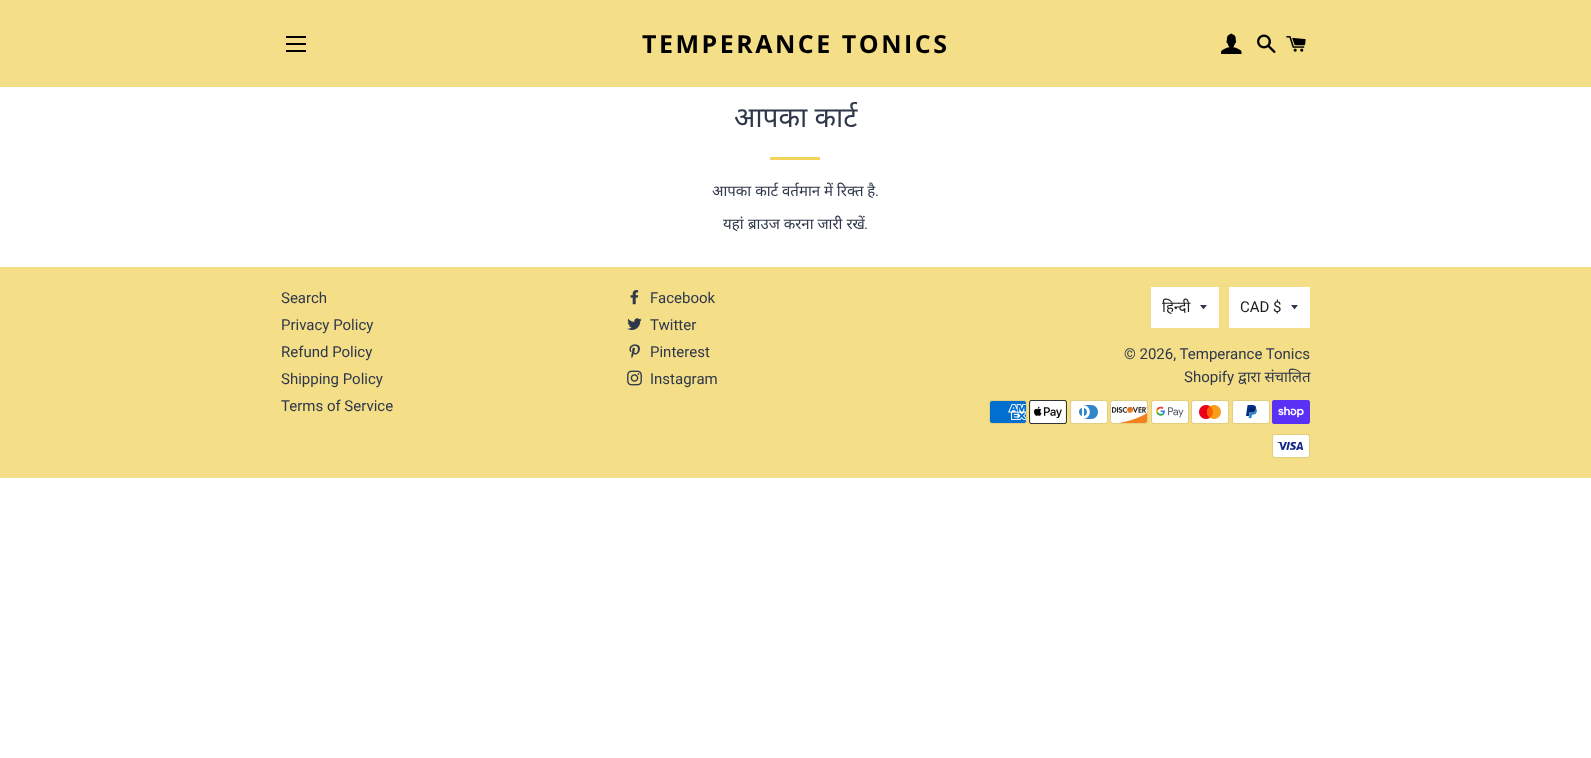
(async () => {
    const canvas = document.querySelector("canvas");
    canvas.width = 1591;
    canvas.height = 758;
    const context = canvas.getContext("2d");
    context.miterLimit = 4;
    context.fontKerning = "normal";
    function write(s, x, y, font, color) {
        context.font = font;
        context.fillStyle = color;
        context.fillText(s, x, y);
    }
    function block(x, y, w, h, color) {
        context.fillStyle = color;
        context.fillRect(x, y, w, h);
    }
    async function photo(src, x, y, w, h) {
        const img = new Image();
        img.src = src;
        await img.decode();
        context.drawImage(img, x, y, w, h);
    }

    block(0, 0, 1591, 758, "rgb(255, 255, 255)");
    block(0, 0, 1591, 87, "rgb(244, 222, 136)");
    block(286, 36, 20, 2, "rgb(0, 0, 0)");
    block(286, 43, 20, 2, "rgb(0, 0, 0)");
    block(286, 50, 20, 2, "rgb(0, 0, 0)");
    context.letterSpacing = "2.5px";
    write("TEMPERANCE TONICS", 642, 53, "bold 25px Open Sans", "rgb(0, 0, 0)");
    await photo("media/1.png", 1221, 33, 21, 21);
    await photo("media/2.png", 1257, 34, 19, 19);
    await photo("media/3.png", 1286, 36, 20, 16);
    context.letterSpacing = "0px";
    write("आपका कार्ट", 734, 127, "28px Noto Sans", "rgb(47, 56, 75)");
    block(770, 157, 50, 3, "rgb(244, 213, 91)");
    write("आपका कार्ट वर्तमान में रिक्त है", 712, 196, "15px Noto Sans", "rgb(47, 56, 75)");
    write(".", 875, 196, "15px Roboto", "rgb(47, 56, 75)");
    write("यहां", 723, 229, "15px Noto Sans", "rgb(47, 56, 75)");
    write("ब्राउज करना जारी रखें", 748, 229, "15px Noto Sans", "rgb(47, 56, 75)");
    write(".", 864, 229, "15px Roboto", "rgb(47, 56, 75)");
    block(0, 267, 1591, 211, "rgb(244, 222, 136)");
    write("Search", 281, 303, "15px Roboto", "rgb(47, 56, 75)");
    write("Privacy Policy", 281, 330, "15px Roboto", "rgb(47, 56, 75)");
    write("Refund Policy", 281, 357, "15px Roboto", "rgb(47, 56, 75)");
    write("Shipping Policy", 281, 384, "15px Roboto", "rgb(47, 56, 75)");
    write("Terms of Service", 281, 411, "15px Roboto", "rgb(47, 56, 75)");
    await photo("media/4.png", 630, 290, 9, 15);
    write("Facebook", 650, 303, "15px Roboto", "rgb(47, 56, 75)");
    await photo("media/5.png", 627, 318, 15, 12);
    write("Twitter", 650, 330, "15px Roboto", "rgb(47, 56, 75)");
    await photo("media/6.png", 629, 344, 11, 14);
    write("Pinterest", 650, 357, "15px Roboto", "rgb(47, 56, 75)");
    await photo("media/7.png", 627, 370, 15, 16);
    write("Instagram", 650, 384, "15px Roboto", "rgb(47, 56, 75)");
    block(1151, 287, 68, 41, "rgb(255, 255, 255)");
    context.fillStyle = "rgb(47, 56, 75)";
    context.beginPath();
    context.moveTo(1200, 305);
    context.bezierCurveTo(1204.5, 310.5, 1202.5, 310.5, 1207, 305);
    context.closePath();
    context.fill();
    write("हिन्दी", 1162, 312, "15px Noto Sans", "rgb(28, 29, 29)");
    block(1229, 287, 81, 41, "rgb(255, 255, 255)");
    context.fillStyle = "rgb(47, 56, 75)";
    context.beginPath();
    context.moveTo(1291, 305);
    context.bezierCurveTo(1295.5, 310.5, 1293.5, 310.5, 1298, 305);
    context.closePath();
    context.fill();
    write("CAD $", 1240, 312, "15px Roboto", "rgb(28, 29, 29)");
    write("© 2026, Temperance Tonics", 1124, 359, "15px Roboto", "rgb(47, 56, 75)");
    write("Shopify", 1184, 382, "15px Roboto", "rgb(47, 56, 75)");
    write("द्वारा संचालित", 1238, 382, "15px Noto Sans", "rgb(47, 56, 75)");
    await photo("media/8.png", 989, 400, 38, 24);
    await photo("media/9.png", 1029, 400, 38, 24);
    await photo("media/10.png", 1070, 400, 38, 24);
    await photo("media/11.png", 1110, 400, 38, 24);
    await photo("media/12.png", 1151, 400, 38, 24);
    await photo("media/13.png", 1191, 400, 38, 24);
    await photo("media/14.png", 1232, 400, 38, 24);
    await photo("media/15.png", 1272, 400, 38, 24);
    await photo("media/16.png", 1272, 434, 38, 24);
})();
